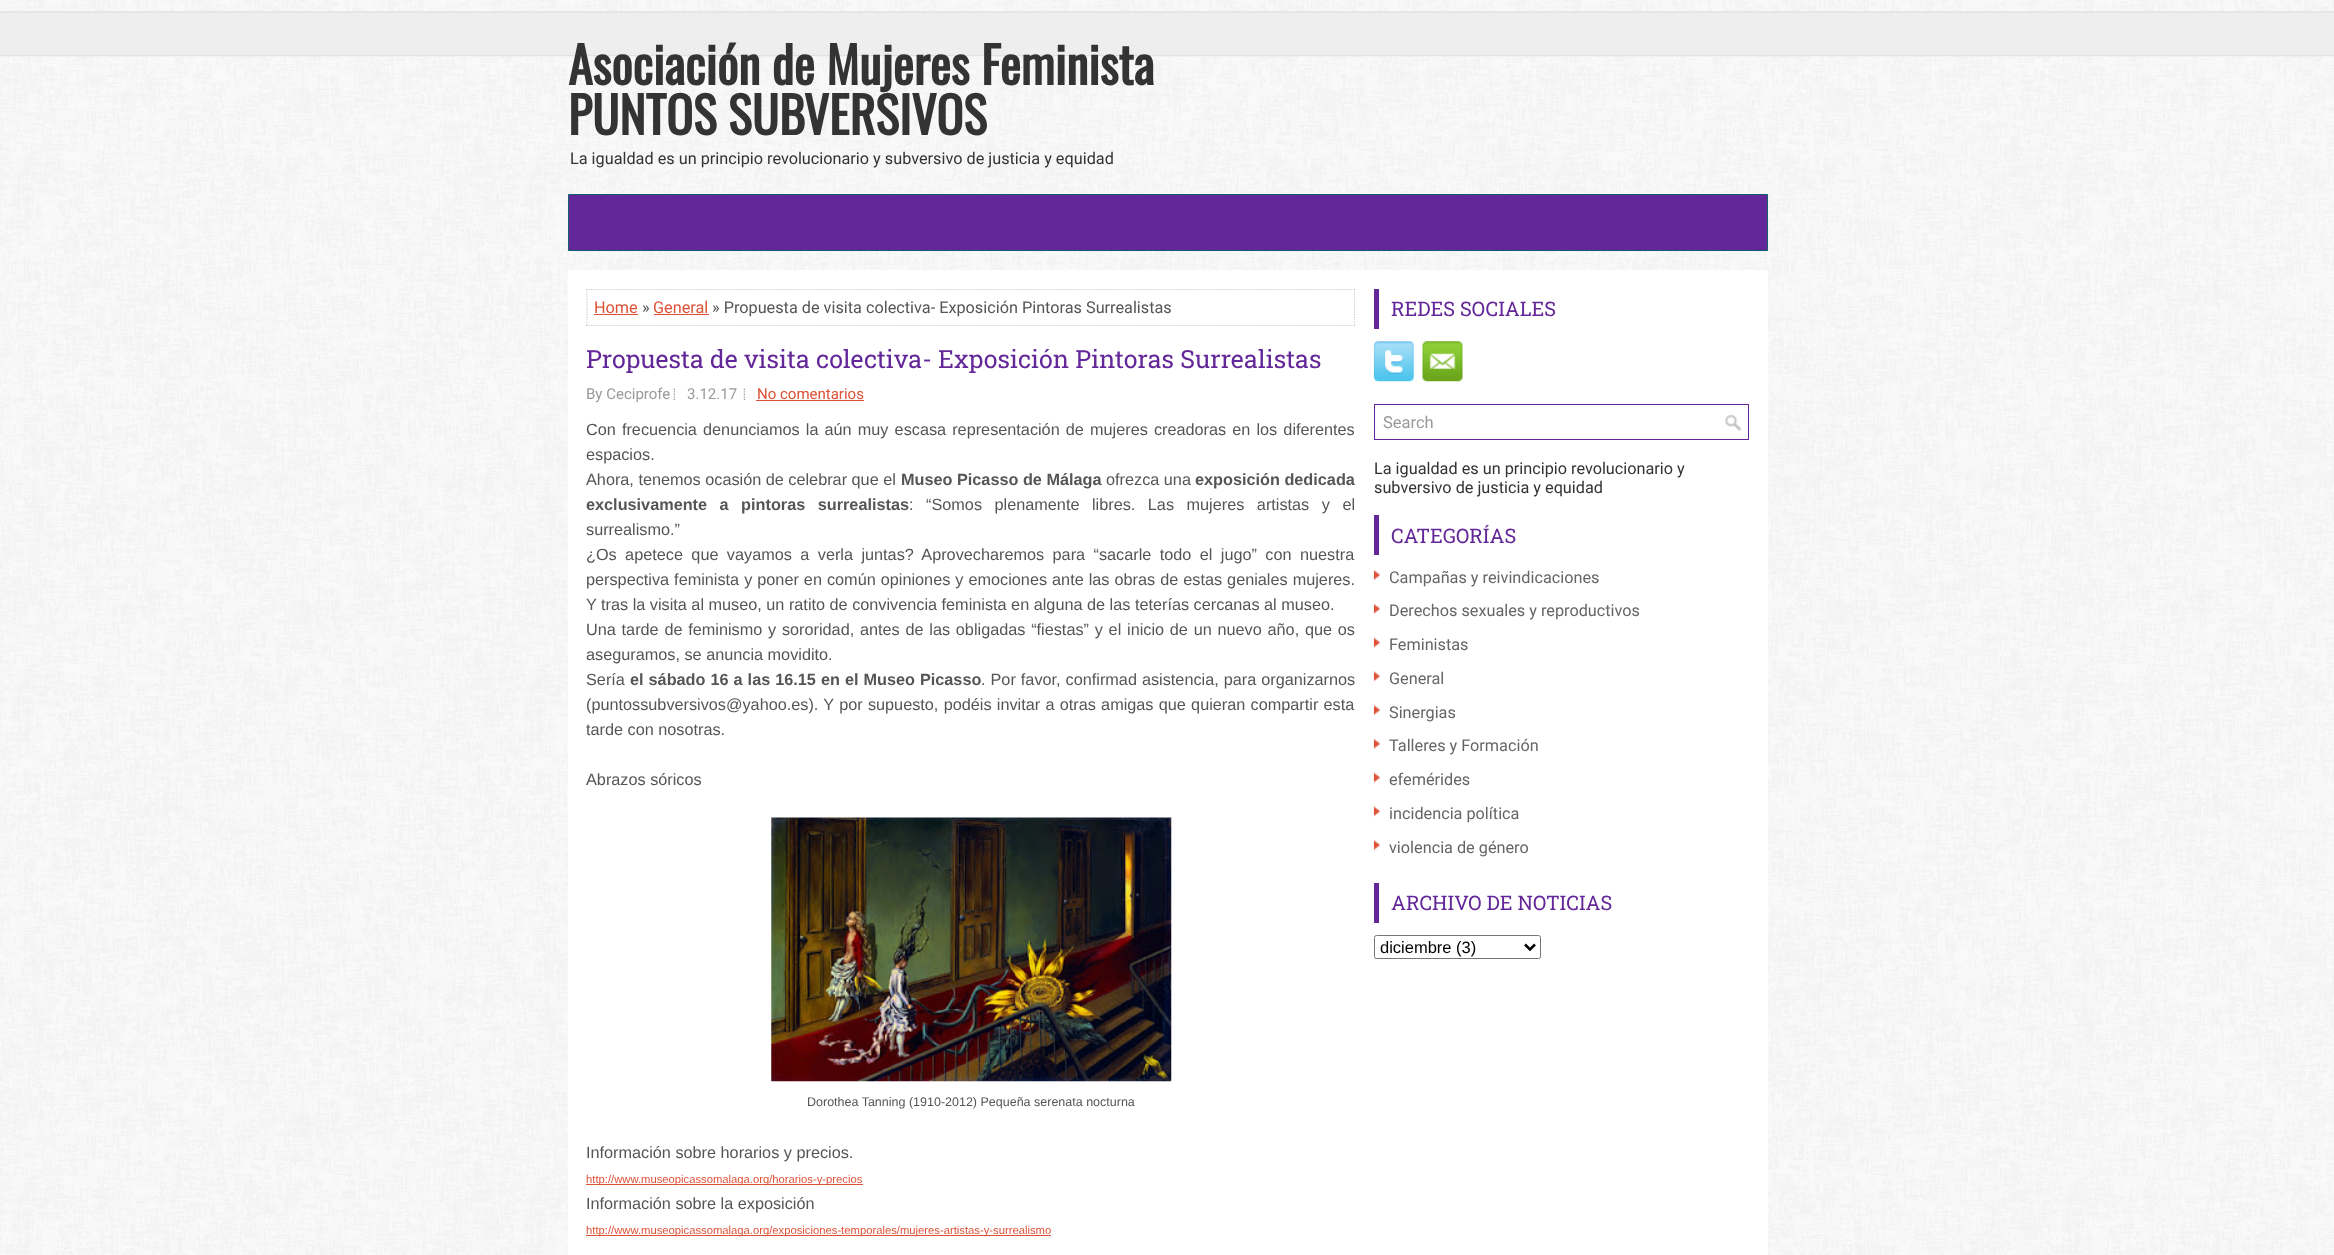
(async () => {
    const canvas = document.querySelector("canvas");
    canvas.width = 2334;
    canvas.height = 1255;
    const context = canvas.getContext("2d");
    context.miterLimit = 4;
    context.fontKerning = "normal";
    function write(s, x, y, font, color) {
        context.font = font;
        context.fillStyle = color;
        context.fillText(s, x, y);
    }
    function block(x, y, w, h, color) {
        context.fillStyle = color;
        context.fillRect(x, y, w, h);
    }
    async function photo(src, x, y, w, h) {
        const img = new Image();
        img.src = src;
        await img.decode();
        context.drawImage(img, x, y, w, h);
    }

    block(0, 0, 2334, 1255, "rgb(255, 255, 255)");
    await photo("media/1.png", 0, 0, 2334, 1255);
    write("Asociación de Mujeres Feminista", 568, 85, "bold 50px Oswald", "rgb(51, 51, 51)");
    write("PUNTOS SUBVERSIVOS", 568, 135, "bold 50px Oswald", "rgb(51, 51, 51)");
    write("La igualdad es un principio revolucionario y subversivo de justicia y equidad", 570, 164, "16.25px Roboto", "rgb(51, 51, 51)");
    context.fillStyle = "rgb(99, 39, 153)";
    context.beginPath();
    context.rect(568.5, 194.5, 1199, 56);
    context.fill();
    context.strokeStyle = "rgb(18, 93, 110)";
    context.stroke();
    block(568, 270, 1200, 985, "rgb(255, 255, 255)");
    context.save();
    context.beginPath();
    context.rect(586, 289, 769, 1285);
    context.clip();
    context.beginPath();
    context.moveTo(586, 289.5);
    context.lineTo(1355, 289.5);
    context.strokeStyle = "rgb(204, 204, 204)";
    context.lineWidth = 1.2;
    context.setLineDash([1.25, 1.25]);
    context.stroke();
    context.beginPath();
    context.moveTo(1354.5, 289);
    context.lineTo(1354.5, 326);
    context.stroke();
    context.restore();
    context.beginPath();
    context.moveTo(586, 325.5);
    context.lineTo(1355, 325.5);
    context.strokeStyle = "rgb(204, 204, 204)";
    context.lineWidth = 1.2;
    context.setLineDash([1.25, 1.25]);
    context.stroke();
    context.beginPath();
    context.moveTo(587, 289);
    context.lineTo(587, 326);
    context.stroke();
    write("Home", 594, 313, "16.25px Roboto", "rgb(221, 81, 55)");
    block(594, 314, 44, 1, "rgb(221, 81, 55)");
    write("»", 642, 313, "16.25px Roboto", "rgb(85, 85, 85)");
    write("General", 653, 313, "16.25px Roboto", "rgb(221, 81, 55)");
    block(654, 314, 55, 1, "rgb(221, 81, 55)");
    write("» Propuesta de visita colectiva- Exposición Pintoras Surrealistas", 712, 313, "16.25px Roboto", "rgb(85, 85, 85)");
    write("Propuesta de visita colectiva- Exposición Pintoras Surrealistas", 586, 368, "25px Roboto Slab", "rgb(99, 39, 153)");
    write("By Ceciprofe", 586, 399, "15px Roboto", "rgb(153, 153, 153)");
    await photo("media/2.png", 673, 388, 2, 12);
    write("3.12.17", 687, 399, "15px Roboto", "rgb(153, 153, 153)");
    await photo("media/2.png", 743, 388, 2, 12);
    write("No comentarios", 757, 399, "15px Roboto", "rgb(221, 81, 55)");
    block(756, 400, 108, 1, "rgb(221, 81, 55)");
    context.wordSpacing = "1.6px";
    write("Con frecuencia denunciamos la aún muy escasa representación de mujeres creadoras en los diferentes", 586, 435, "16.25px Liberation Sans", "rgb(85, 85, 85)");
    context.wordSpacing = "0px";
    write("espacios.", 586, 460, "16.25px Liberation Sans", "rgb(85, 85, 85)");
    write("Ahora, tenemos ocasión de celebrar que el", 586, 485, "16.25px Liberation Sans", "rgb(85, 85, 85)");
    write("Museo Picasso de Málaga", 901, 485, "bold 16.25px Liberation Sans", "rgb(85, 85, 85)");
    write("ofrezca una", 1106, 485, "16.25px Liberation Sans", "rgb(85, 85, 85)");
    write("exposición dedicada", 1195, 485, "bold 16.25px Liberation Sans", "rgb(85, 85, 85)");
    context.wordSpacing = "8px";
    write("exclusivamente a pintoras surrealistas", 586, 510, "bold 16.25px Liberation Sans", "rgb(85, 85, 85)");
    write(": “Somos plenamente libres. Las mujeres artistas y el", 909, 510, "16.25px Liberation Sans", "rgb(85, 85, 85)");
    context.wordSpacing = "0px";
    write("surrealismo.”", 586, 535, "16.25px Liberation Sans", "rgb(85, 85, 85)");
    context.wordSpacing = "3.9px";
    write("¿Os apetece que vayamos a verla juntas? Aprovecharemos para “sacarle todo el jugo” con nuestra", 586, 560, "16.25px Liberation Sans", "rgb(85, 85, 85)");
    context.wordSpacing = "0.5px";
    write("perspectiva feminista y poner en común opiniones y emociones ante las obras de estas geniales mujeres.", 586, 585, "16.25px Liberation Sans", "rgb(85, 85, 85)");
    context.wordSpacing = "0px";
    write("Y tras la visita al museo, un ratito de convivencia feminista en alguna de las teterías cercanas al museo.", 586, 610, "16.25px Liberation Sans", "rgb(85, 85, 85)");
    context.wordSpacing = "1.25px";
    write("Una tarde de feminismo y sororidad, antes de las obligadas “fiestas” y el inicio de un nuevo año, que os", 586, 635, "16.25px Liberation Sans", "rgb(85, 85, 85)");
    context.wordSpacing = "0px";
    write("aseguramos, se anuncia movidito.", 586, 660, "16.25px Liberation Sans", "rgb(85, 85, 85)");
    write("Sería", 586, 685, "16.25px Liberation Sans", "rgb(85, 85, 85)");
    context.wordSpacing = "0.5px";
    write("el sábado 16 a las 16.15 en el Museo Picasso", 630, 685, "bold 16.25px Liberation Sans", "rgb(85, 85, 85)");
    write(". Por favor, confirmad asistencia, para organizarnos", 981, 685, "16.25px Liberation Sans", "rgb(85, 85, 85)");
    context.wordSpacing = "0.75px";
    write("(puntossubversivos@yahoo.es). Y por supuesto, podéis invitar a otras amigas que quieran compartir esta", 586, 710, "16.25px Liberation Sans", "rgb(85, 85, 85)");
    context.wordSpacing = "0px";
    write("tarde con nosotras.", 586, 735, "16.25px Liberation Sans", "rgb(85, 85, 85)");
    write("Abrazos sóricos", 586, 785, "16.25px Liberation Sans", "rgb(85, 85, 85)");
    await photo("media/3.png", 771, 817, 401, 265);
    write("Dorothea Tanning (1910-2012) Pequeña serenata nocturna", 807, 1106, "12.5px Liberation Sans", "rgb(85, 85, 85)");
    write("Información sobre horarios y precios.", 586, 1158, "16.25px Liberation Sans", "rgb(85, 85, 85)");
    block(586, 1184, 277, 1, "rgb(221, 81, 55)");
    write("http://www.museopicassomalaga.org/horarios-y-precios", 586, 1183, "11.25px Liberation Sans", "rgb(221, 81, 55)");
    write("Información sobre la exposición", 586, 1209, "16.25px Liberation Sans", "rgb(85, 85, 85)");
    block(586, 1235, 465, 1, "rgb(221, 81, 55)");
    write("http://www.museopicassomalaga.org/exposiciones-temporales/mujeres-artistas-y-surrealismo", 586, 1234, "11.25px Liberation Sans", "rgb(221, 81, 55)");
    block(1374, 289, 5, 40, "rgb(99, 39, 153)");
    write("REDES SOCIALES", 1391, 316, "20px Roboto Slab", "rgb(99, 39, 153)");
    await photo("media/4.png", 1373, 341, 41, 41);
    await photo("media/5.png", 1422, 341, 41, 41);
    await photo("media/6.png", 1725, 414, 17, 18);
    context.strokeStyle = "rgb(99, 39, 153)";
    context.lineWidth = 1;
    context.setLineDash([]);
    context.strokeRect(1374.5, 404.5, 374, 35);
    write("Search", 1383, 428, "16.5px Roboto", "rgb(153, 153, 153)");
    write("La igualdad es un principio revolucionario y", 1374, 474, "16.25px Roboto", "rgb(51, 51, 51)");
    write("subversivo de justicia y equidad", 1374, 493, "16.25px Roboto", "rgb(51, 51, 51)");
    block(1374, 515, 5, 40, "rgb(99, 39, 153)");
    write("CATEGORÍAS", 1391, 543, "20px Roboto Slab", "rgb(99, 39, 153)");
    await photo("media/7.png", 1373, 570, 7, 10);
    write("Campañas y reivindicaciones", 1389, 583, "16.25px Roboto", "rgb(102, 102, 102)");
    await photo("media/8.png", 1373, 603, 7, 11);
    write("Derechos sexuales y reproductivos", 1389, 616, "16.25px Roboto", "rgb(102, 102, 102)");
    await photo("media/9.png", 1373, 637, 7, 11);
    write("Feministas", 1389, 650, "16.25px Roboto", "rgb(102, 102, 102)");
    await photo("media/10.png", 1373, 671, 7, 11);
    write("General", 1389, 684, "16.25px Roboto", "rgb(102, 102, 102)");
    await photo("media/7.png", 1373, 705, 7, 10);
    write("Sinergias", 1389, 718, "16.25px Roboto", "rgb(102, 102, 102)");
    await photo("media/8.png", 1373, 738, 7, 11);
    write("Talleres y Formación", 1389, 751, "16.25px Roboto", "rgb(102, 102, 102)");
    await photo("media/9.png", 1373, 772, 7, 11);
    write("efemérides", 1389, 785, "16.25px Roboto", "rgb(102, 102, 102)");
    await photo("media/10.png", 1373, 806, 7, 11);
    write("incidencia política", 1389, 819, "16.25px Roboto", "rgb(102, 102, 102)");
    await photo("media/7.png", 1373, 840, 7, 10);
    write("violencia de género", 1389, 853, "16.25px Roboto", "rgb(102, 102, 102)");
    block(1374, 883, 5, 40, "rgb(99, 39, 153)");
    write("ARCHIVO DE NOTICIAS", 1391, 910, "20px Roboto Slab", "rgb(99, 39, 153)");
    context.beginPath();
    context.roundRect(1374.5, 935.5, 166, 23, 2);
    context.strokeStyle = "rgb(118, 118, 118)";
    context.stroke();
    context.beginPath();
    context.moveTo(1525, 944.5);
    context.lineTo(1530, 949.5);
    context.lineTo(1535, 944.5);
    context.strokeStyle = "rgb(0, 0, 0)";
    context.lineWidth = 2.5;
    context.stroke();
    write("diciembre (3)", 1380, 953, "16.5px Liberation Sans", "rgb(0, 0, 0)");
})();
